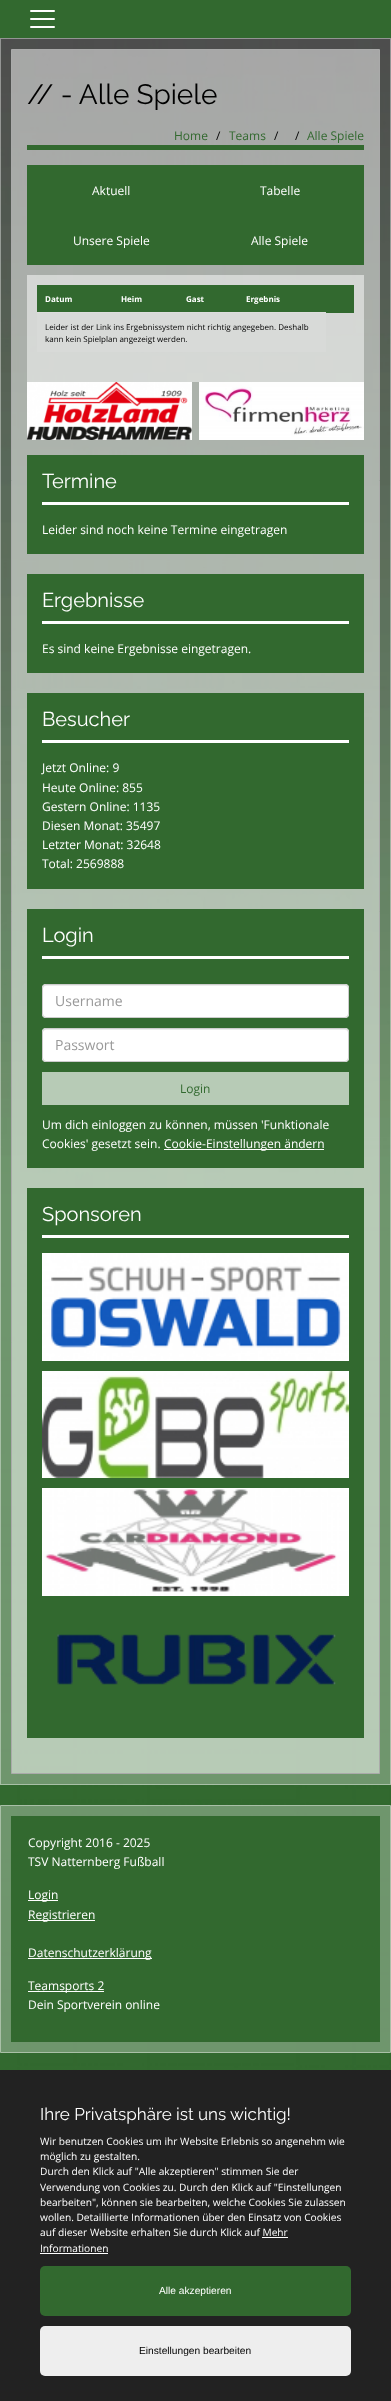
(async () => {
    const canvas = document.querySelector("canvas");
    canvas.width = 391;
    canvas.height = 2401;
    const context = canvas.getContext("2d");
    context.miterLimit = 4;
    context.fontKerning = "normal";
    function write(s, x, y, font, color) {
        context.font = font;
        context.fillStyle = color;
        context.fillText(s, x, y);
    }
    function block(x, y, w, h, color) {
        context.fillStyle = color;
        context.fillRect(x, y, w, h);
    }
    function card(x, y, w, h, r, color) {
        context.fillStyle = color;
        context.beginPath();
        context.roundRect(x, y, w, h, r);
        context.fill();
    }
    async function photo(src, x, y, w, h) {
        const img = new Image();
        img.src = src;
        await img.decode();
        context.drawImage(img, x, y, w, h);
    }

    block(0, 0, 391, 2401, "rgb(255, 255, 255)");
    await photo("media/1.png", 0, 38, 391, 2032);
    block(0, 0, 391, 38, "rgb(50, 105, 47)");
    card(30, 10, 25, 2, 1, "rgb(255, 255, 255)");
    card(30, 18, 25, 2, 1, "rgb(255, 255, 255)");
    card(30, 26, 25, 2, 1, "rgb(255, 255, 255)");
    block(0, 38, 391, 1747, "rgba(255, 255, 255, 0.3)");
    context.strokeStyle = "rgba(255, 255, 255, 0.4)";
    context.strokeRect(0.5, 38.5, 390, 1746);
    context.fillStyle = "rgba(255, 255, 255, 0.5)";
    context.beginPath();
    context.rect(11.5, 49.5, 368, 1724);
    context.fill();
    context.strokeStyle = "rgb(170, 170, 170)";
    context.stroke();
    block(27, 145, 337, 5, "rgb(50, 105, 47)");
    write("// - Alle Spiele", 27, 104, "28px Raleway", "rgb(0, 0, 0)");
    write("Home", 174, 140, "12px Open Sans", "rgb(50, 105, 47)");
    write("/", 216, 140, "12px Open Sans", "rgb(0, 0, 0)");
    write("Teams", 229, 140, "12px Open Sans", "rgb(50, 105, 47)");
    write("/", 274, 140, "12px Open Sans", "rgb(0, 0, 0)");
    write("/", 295, 140, "12px Open Sans", "rgb(0, 0, 0)");
    write("Alle Spiele", 307, 140, "12px Open Sans", "rgb(50, 105, 47)");
    block(27, 165, 337, 50, "rgb(50, 105, 47)");
    write("Aktuell", 92, 195, "12px Open Sans", "rgb(255, 255, 255)");
    write("Tabelle", 260, 195, "12px Open Sans", "rgb(255, 255, 255)");
    block(27, 215, 337, 50, "rgb(50, 105, 47)");
    write("Unsere Spiele", 73, 245, "12px Open Sans", "rgb(255, 255, 255)");
    write("Alle Spiele", 251, 245, "12px Open Sans", "rgb(255, 255, 255)");
    block(27, 275, 337, 107, "rgba(255, 255, 255, 0.5)");
    block(37, 285, 289, 27, "rgb(50, 105, 47)");
    write("Datum", 45, 302, "bold 8px Open Sans", "rgb(255, 255, 255)");
    write("Heim", 121, 302, "bold 8px Open Sans", "rgb(255, 255, 255)");
    write("Gast", 186, 302, "bold 8px Open Sans", "rgb(255, 255, 255)");
    write("Ergebnis", 246, 302, "bold 8px Open Sans", "rgb(255, 255, 255)");
    block(326, 285, 28, 28, "rgb(50, 105, 47)");
    block(37, 313, 289, 39, "rgb(216, 218, 216)");
    block(37, 312, 289, 1, "rgb(221, 221, 221)");
    write("Leider ist der Link ins Ergebnissystem nicht richtig angegeben. Deshalb", 45, 330, "8px Open Sans", "rgb(0, 0, 0)");
    write("kann kein Spielplan angezeigt werden.", 45, 342, "8px Open Sans", "rgb(0, 0, 0)");
    await photo("media/2.png", 27, 382, 165, 58);
    await photo("media/3.png", 199, 382, 165, 58);
    block(27, 455, 337, 99, "rgb(50, 105, 47)");
    block(42, 502, 307, 3, "rgb(255, 255, 255)");
    write("Termine", 42, 488, "20px Raleway", "rgb(255, 255, 255)");
    write("Leider sind noch keine Termine eingetragen", 42, 534, "12px Open Sans", "rgb(255, 255, 255)");
    block(27, 574, 337, 99, "rgb(50, 105, 47)");
    block(42, 621, 307, 3, "rgb(255, 255, 255)");
    write("Ergebnisse", 42, 607, "20px Raleway", "rgb(255, 255, 255)");
    write("Es sind keine Ergebnisse eingetragen.", 42, 653, "12px Open Sans", "rgb(255, 255, 255)");
    block(27, 693, 337, 196, "rgb(50, 105, 47)");
    block(42, 740, 307, 3, "rgb(255, 255, 255)");
    write("Besucher", 42, 726, "20px Raleway", "rgb(255, 255, 255)");
    write("Jetzt Online: 9", 42, 772, "12px Open Sans", "rgb(255, 255, 255)");
    write("Heute Online: 855", 42, 792, "12px Open Sans", "rgb(255, 255, 255)");
    write("Gestern Online: 1135", 42, 811, "12px Open Sans", "rgb(255, 255, 255)");
    write("Diesen Monat: 35497", 42, 830, "12px Open Sans", "rgb(255, 255, 255)");
    write("Letzter Monat: 32648", 42, 849, "12px Open Sans", "rgb(255, 255, 255)");
    write("Total: 2569888", 42, 868, "12px Open Sans", "rgb(255, 255, 255)");
    block(27, 909, 337, 259, "rgb(50, 105, 47)");
    block(42, 956, 307, 3, "rgb(255, 255, 255)");
    write("Login", 42, 942, "20px Raleway", "rgb(255, 255, 255)");
    card(42, 984, 307, 34, 4, "rgb(255, 255, 255)");
    context.fillStyle = "rgb(236, 236, 236)";
    context.beginPath();
    context.moveTo(46, 986);
    context.lineTo(345, 986);
    context.bezierCurveTo(347, 986, 348, 987, 348, 989);
    context.lineTo(347, 986);
    context.lineTo(346, 985);
    context.lineTo(46, 985);
    context.bezierCurveTo(44, 985, 43, 987, 43, 989);
    context.bezierCurveTo(43, 987, 44, 986, 46, 986);
    context.closePath();
    context.fill();
    context.beginPath();
    context.roundRect(42.5, 984.5, 306, 33, 3.5);
    context.strokeStyle = "rgb(204, 204, 204)";
    context.stroke();
    write("Username", 55, 1006, "14px Open Sans", "rgb(153, 153, 153)");
    card(42, 1028, 307, 34, 4, "rgb(255, 255, 255)");
    context.fillStyle = "rgb(236, 236, 236)";
    context.beginPath();
    context.moveTo(46, 1030);
    context.lineTo(345, 1030);
    context.bezierCurveTo(347, 1030, 348, 1031, 348, 1033);
    context.lineTo(347, 1030);
    context.lineTo(346, 1029);
    context.lineTo(46, 1029);
    context.bezierCurveTo(44, 1029, 43, 1031, 43, 1033);
    context.bezierCurveTo(43, 1031, 44, 1030, 46, 1030);
    context.closePath();
    context.fill();
    context.beginPath();
    context.roundRect(42.5, 1028.5, 306, 33, 3.5);
    context.stroke();
    write("Passwort", 55, 1050, "14px Open Sans", "rgb(153, 153, 153)");
    block(42, 1072, 307, 33, "rgb(183, 203, 182)");
    write("Login", 180, 1093, "12px Open Sans", "rgb(50, 105, 47)");
    write("Um dich einloggen zu können, müssen 'Funktionale", 42, 1129, "12px Open Sans", "rgb(255, 255, 255)");
    write("Cookies' gesetzt sein.", 42, 1148, "12px Open Sans", "rgb(255, 255, 255)");
    block(164, 1149, 160, 1, "rgb(255, 255, 255)");
    write("Cookie-Einstellungen ändern", 164, 1148, "12px Open Sans", "rgb(255, 255, 255)");
    block(27, 1188, 337, 550, "rgb(50, 105, 47)");
    block(42, 1235, 307, 3, "rgb(255, 255, 255)");
    write("Sponsoren", 42, 1221, "20px Raleway", "rgb(255, 255, 255)");
    await photo("media/4.png", 42, 1253, 307, 108);
    await photo("media/5.png", 42, 1371, 307, 107);
    await photo("media/6.png", 42, 1488, 307, 108);
    await photo("media/7.png", 57, 1634, 279, 51);
    context.fillStyle = "rgba(255, 255, 255, 0.3)";
    context.beginPath();
    context.rect(0.5, 1805.5, 390, 247);
    context.fill();
    context.strokeStyle = "rgb(169, 192, 167)";
    context.stroke();
    block(11, 1816, 369, 226, "rgb(50, 105, 47)");
    write("Copyright 2016 - 2025", 28, 1847, "12px Open Sans", "rgb(255, 255, 255)");
    write("TSV Natternberg Fußball", 28, 1866, "12px Open Sans", "rgb(255, 255, 255)");
    block(28, 1900, 30, 1, "rgb(255, 255, 255)");
    write("Login", 28, 1899, "12px Open Sans", "rgb(255, 255, 255)");
    block(28, 1920, 67, 1, "rgb(255, 255, 255)");
    write("Registrieren", 28, 1919, "12px Open Sans", "rgb(255, 255, 255)");
    block(28, 1958, 124, 1, "rgb(255, 255, 255)");
    write("Datenschutzerklärung", 28, 1957, "12px Open Sans", "rgb(255, 255, 255)");
    block(28, 1991, 76, 1, "rgb(255, 255, 255)");
    write("Teamsports 2", 28, 1990, "12px Open Sans", "rgb(255, 255, 255)");
    write("Dein Sportverein online", 28, 2009, "12px Open Sans", "rgb(255, 255, 255)");
    block(0, 2070, 391, 331, "rgb(34, 34, 34)");
    write("Ihre Privatsphäre ist uns wichtig!", 40, 2120, "17px Raleway", "rgb(255, 255, 255)");
    write("Wir benutzen Cookies um ihr Website Erlebnis so angenehm wie", 40, 2145, "10.2px Open Sans", "rgb(255, 255, 255)");
    write("möglich zu gestalten.", 40, 2160, "10.2px Open Sans", "rgb(255, 255, 255)");
    write("Durch den Klick auf \"Alle akzeptieren\" stimmen Sie der", 40, 2175, "10.2px Open Sans", "rgb(255, 255, 255)");
    write("Verwendung von Cookies zu. Durch den Klick auf \"Einstellungen", 40, 2191, "10.2px Open Sans", "rgb(255, 255, 255)");
    write("bearbeiten\", können sie bearbeiten, welche Cookies Sie zulassen", 40, 2206, "10.2px Open Sans", "rgb(255, 255, 255)");
    write("wollen. Detaillierte Informationen über den Einsatz von Cookies", 40, 2221, "10.2px Open Sans", "rgb(255, 255, 255)");
    write("auf dieser Website erhalten Sie durch Klick auf Mehr", 40, 2236, "10.2px Open Sans", "rgb(255, 255, 255)");
    write("Informationen", 40, 2252, "10.2px Open Sans", "rgb(255, 255, 255)");
    block(262, 2237, 26, 1, "rgb(255, 255, 255)");
    block(40, 2253, 68, 1, "rgb(255, 255, 255)");
    card(40, 2266, 311, 50, 5, "rgb(50, 105, 47)");
    write("Alle akzeptieren", 159, 2294, "10.2px Liberation Sans", "rgb(255, 255, 255)");
    card(40, 2326, 311, 50, 5, "rgb(238, 238, 238)");
    write("Einstellungen bearbeiten", 139, 2354, "10.2px Liberation Sans", "rgb(0, 0, 0)");
})();
